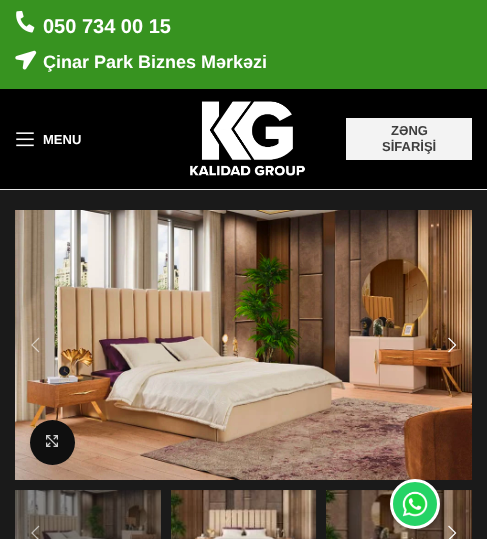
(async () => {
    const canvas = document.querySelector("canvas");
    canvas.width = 487;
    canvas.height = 539;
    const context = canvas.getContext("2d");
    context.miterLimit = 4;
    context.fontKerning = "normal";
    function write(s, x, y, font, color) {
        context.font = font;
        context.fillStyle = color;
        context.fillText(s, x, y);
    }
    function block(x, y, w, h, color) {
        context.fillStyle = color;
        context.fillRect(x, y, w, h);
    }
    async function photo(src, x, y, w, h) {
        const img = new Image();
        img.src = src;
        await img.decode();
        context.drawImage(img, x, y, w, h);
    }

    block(0, 0, 487, 539, "rgb(26, 26, 26)");
    block(0, 0, 487, 89, "rgb(55, 147, 32)");
    await photo("media/1.png", 16, 10, 19, 23);
    write("050 734 00 15", 43, 33, "bold 20px Liberation Sans", "rgb(255, 255, 255)");
    await photo("media/2.png", 15, 50, 22, 20);
    write("Çinar Park Biznes Mərkəzi", 43, 68, "bold 18px Liberation Sans", "rgb(255, 255, 255)");
    block(0, 89, 487, 100, "rgb(0, 0, 0)");
    block(0, 189, 487, 1, "rgb(232, 232, 232)");
    await photo("media/3.png", 16, 132, 18, 15);
    write("MENU", 43, 144, "bold 13px Liberation Sans", "rgb(255, 255, 255)");
    await photo("media/4.png", 190, 101, 115, 75);
    block(346, 118, 126, 42, "rgb(243, 243, 243)");
    write("ZƏNG", 391, 135, "bold 13px Liberation Sans", "rgb(62, 62, 62)");
    write("SİFARİŞİ", 382, 151, "bold 13px Liberation Sans", "rgb(62, 62, 62)");
    await photo("media/5.png", 15, 210, 457, 270);
    await photo("media/6.png", 31, 337, 9, 16);
    await photo("media/7.png", 448, 337, 9, 16);
    context.fillStyle = "rgba(0, 0, 0, 0.08)";
    context.filter = "blur(2.5px)";
    context.beginPath();
    context.roundRect(30, 420, 45, 45, 22.5);
    context.fill();
    context.filter = "none";
    context.fillStyle = "rgb(15, 15, 15)";
    context.beginPath();
    context.arc(52.5, 442.5, 22.5, 0, Math.PI * 2);
    context.fill();
    await photo("media/8.png", 46, 435, 12, 12);
    await photo("media/9.png", 15, 490, 146, 49);
    await photo("media/10.png", 171, 490, 146, 49);
    await photo("media/11.png", 326, 490, 146, 49);
    await photo("media/12.png", 31, 525, 9, 14);
    await photo("media/13.png", 448, 525, 9, 14);
    context.fillStyle = "rgba(0, 0, 0, 0.2)";
    context.filter = "blur(3px)";
    context.beginPath();
    context.roundRect(390, 483, 50, 50, 25);
    context.fill();
    context.filter = "none";
    context.fillStyle = "rgb(37, 211, 102)";
    context.beginPath();
    context.arc(415, 504, 23.5, 0, Math.PI * 2);
    context.fill();
    context.strokeStyle = "rgb(255, 255, 255)";
    context.lineWidth = 3;
    context.stroke();
    await photo("media/14.png", 402, 491, 26, 26);
})();
